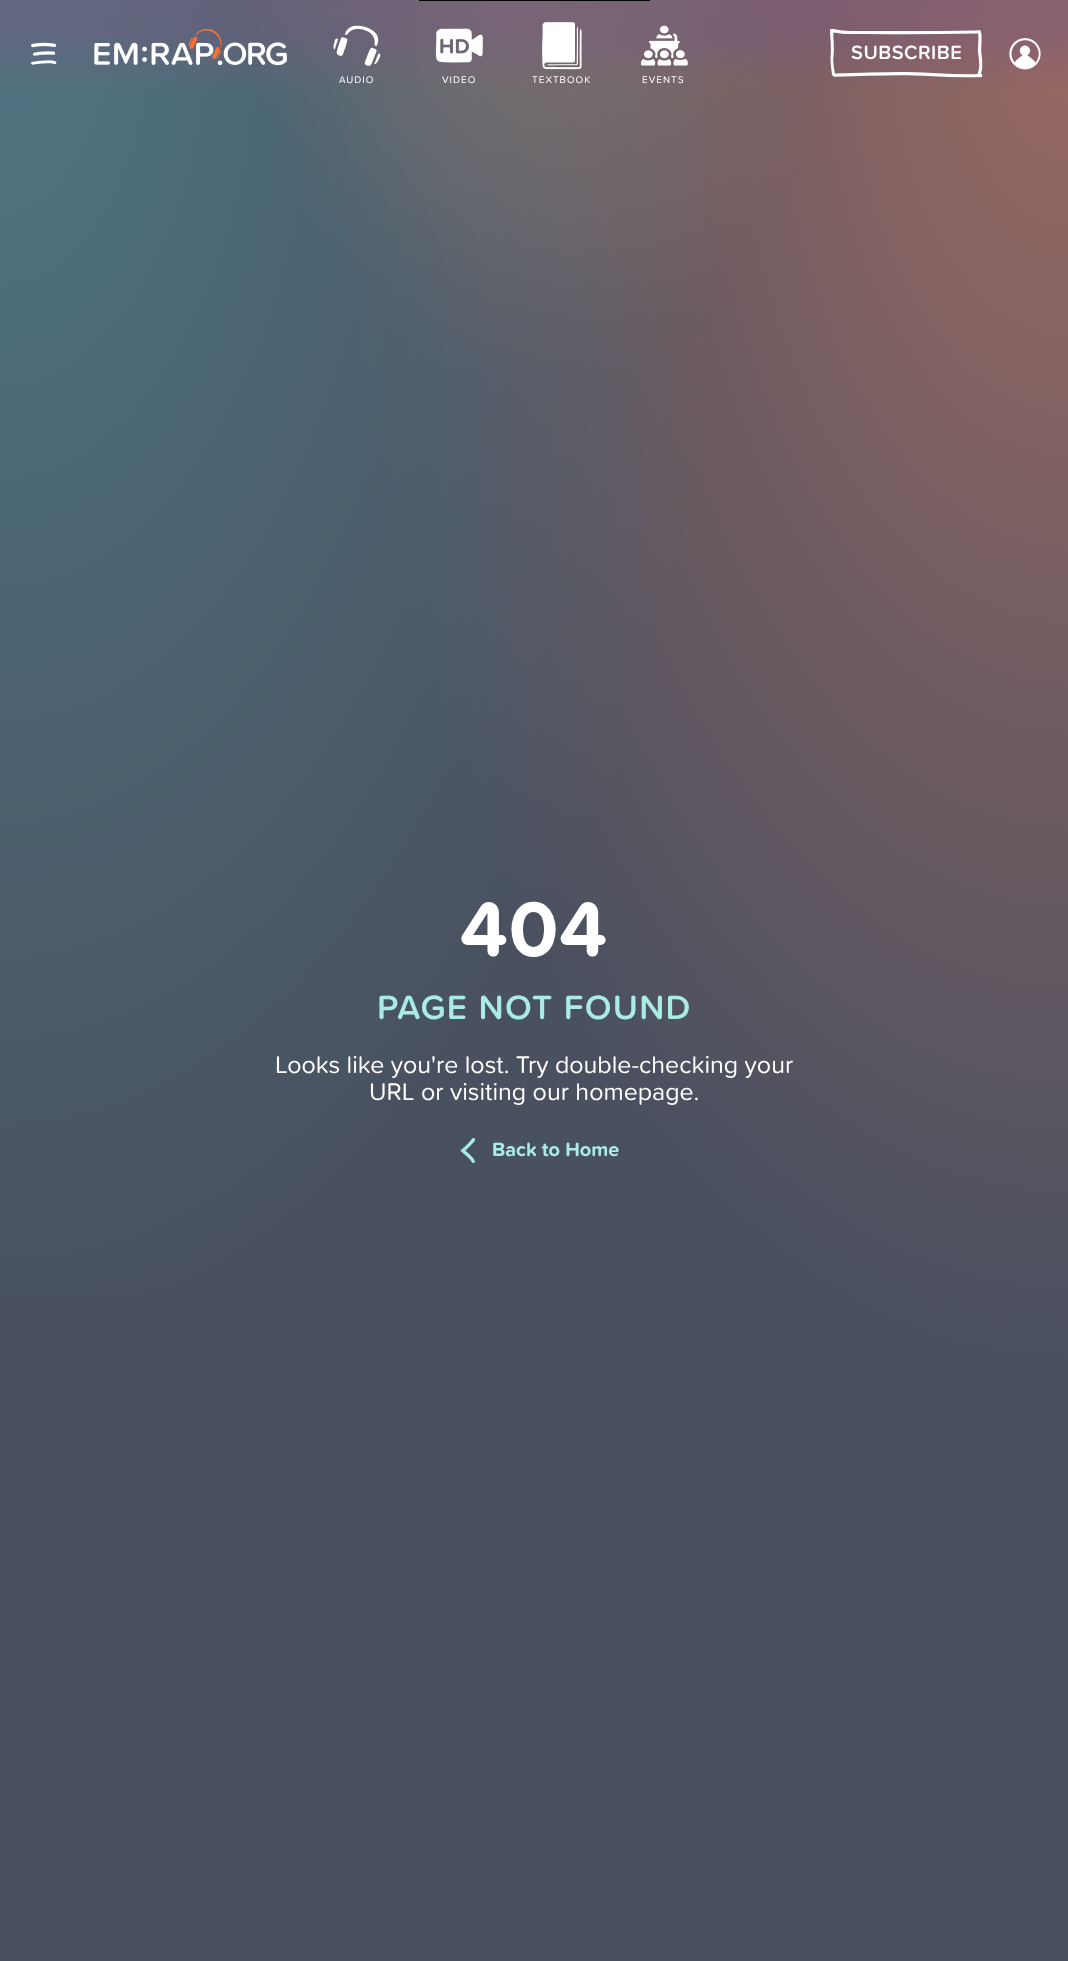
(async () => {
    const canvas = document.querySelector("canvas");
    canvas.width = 1068;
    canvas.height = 1961;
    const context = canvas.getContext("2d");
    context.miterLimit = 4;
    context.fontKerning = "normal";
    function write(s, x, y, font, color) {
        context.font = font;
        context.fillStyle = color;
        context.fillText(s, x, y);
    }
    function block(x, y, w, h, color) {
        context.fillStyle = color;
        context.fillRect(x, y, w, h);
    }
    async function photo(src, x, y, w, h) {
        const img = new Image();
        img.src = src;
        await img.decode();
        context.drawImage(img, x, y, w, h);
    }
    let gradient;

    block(0, 0, 1068, 1961, "rgb(255, 255, 255)");
    gradient = context.createRadialGradient(1069, 0, 0, 1069, 0, 748);
    gradient.addColorStop(0, "rgb(154, 105, 99)");
    gradient.addColorStop(1, "rgb(73, 80, 95)");
    context.fillStyle = gradient;
    context.beginPath();
    context.rect(0, 0, 1068, 1961);
    context.save();
    context.clip();
    context.scale(1, 1373 / 748);
    context.fillRect(0, 0, 1068, 1069);
    context.restore();
    gradient = context.createRadialGradient(0, 0, 0, 0, 0, 748);
    gradient.addColorStop(0, "rgb(79, 117, 130)");
    gradient.addColorStop(1, "rgba(79, 117, 130, 0)");
    context.fillStyle = gradient;
    context.beginPath();
    context.rect(0, 0, 704, 1293);
    context.save();
    context.clip();
    context.scale(1, 1373 / 748);
    context.fillRect(0, 0, 1068, 1069);
    context.restore();
    gradient = context.createRadialGradient(534, -107, 0, 534, -107, 321);
    gradient.addColorStop(0, "rgb(134, 118, 114)");
    gradient.addColorStop(1, "rgba(134, 118, 114, 0)");
    context.fillStyle = gradient;
    context.beginPath();
    context.rect(245, 0, 555, 367);
    context.save();
    context.clip();
    context.scale(1, 588 / 321);
    context.fillRect(0, 0, 1068, 1071);
    context.restore();
    gradient = context.createLinearGradient(534, 0, 534, 106);
    gradient.addColorStop(0, "rgba(121, 89, 127, 0.46)");
    gradient.addColorStop(0.32, "rgba(121, 89, 127, 0.42)");
    gradient.addColorStop(0.5, "rgba(121, 89, 127, 0.3)");
    gradient.addColorStop(0.74, "rgba(125, 93, 121, 0.11)");
    gradient.addColorStop(0.91, "rgba(125, 93, 121, 0)");
    gradient.addColorStop(1, "rgba(232, 227, 233, 0)");
    gradient.addColorStop(1, "rgba(85, 107, 119, 0)");
    context.fillStyle = gradient;
    context.fillRect(0, 0, 1068, 88);
    block(419, 0, 231, 1, "rgb(0, 0, 0)");
    await photo("media/1.png", 830, 29, 153, 49);
    context.letterSpacing = "0.5px";
    write("SUBSCRIBE", 851, 59, "600 20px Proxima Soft", "rgb(255, 255, 255)");
    await photo("media/2.png", 1009, 38, 32, 32);
    await photo("media/3.png", 31, 42, 26, 23);
    await photo("media/4.png", 94, 29, 193, 37);
    await photo("media/5.png", 333, 25, 48, 41);
    context.letterSpacing = "1px";
    write("AUDIO", 339, 83, "10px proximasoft", "rgb(255, 255, 255)");
    await photo("media/6.png", 435, 28, 48, 35);
    write("VIDEO", 442, 83, "10px proximasoft", "rgb(255, 255, 255)");
    await photo("media/7.png", 542, 22, 40, 48);
    write("TEXTBOOK", 532, 83, "10px proximasoft", "rgb(255, 255, 255)");
    await photo("media/8.png", 641, 25, 47, 41);
    write("EVENTS", 642, 83, "10px proximasoft", "rgb(255, 255, 255)");
    write("404", 460, 956, "bold 80px proximasoft", "rgb(255, 255, 255)");
    context.letterSpacing = "1.25px";
    write("PAGE NOT FOUND", 377, 1019, "600 35px Proxima Soft", "rgb(168, 236, 227)");
    context.letterSpacing = "0px";
    write("Looks like you're lost. Try double-checking your", 275, 1073, "25px proximasoft", "rgb(255, 255, 255)");
    write("URL or visiting our homepage.", 369, 1100, "25px proximasoft", "rgb(255, 255, 255)");
    await photo("media/9.png", 460, 1138, 15, 25);
    write("Back to Home", 492, 1156, "bold 20px proximasoft", "rgb(168, 236, 227)");
})();
